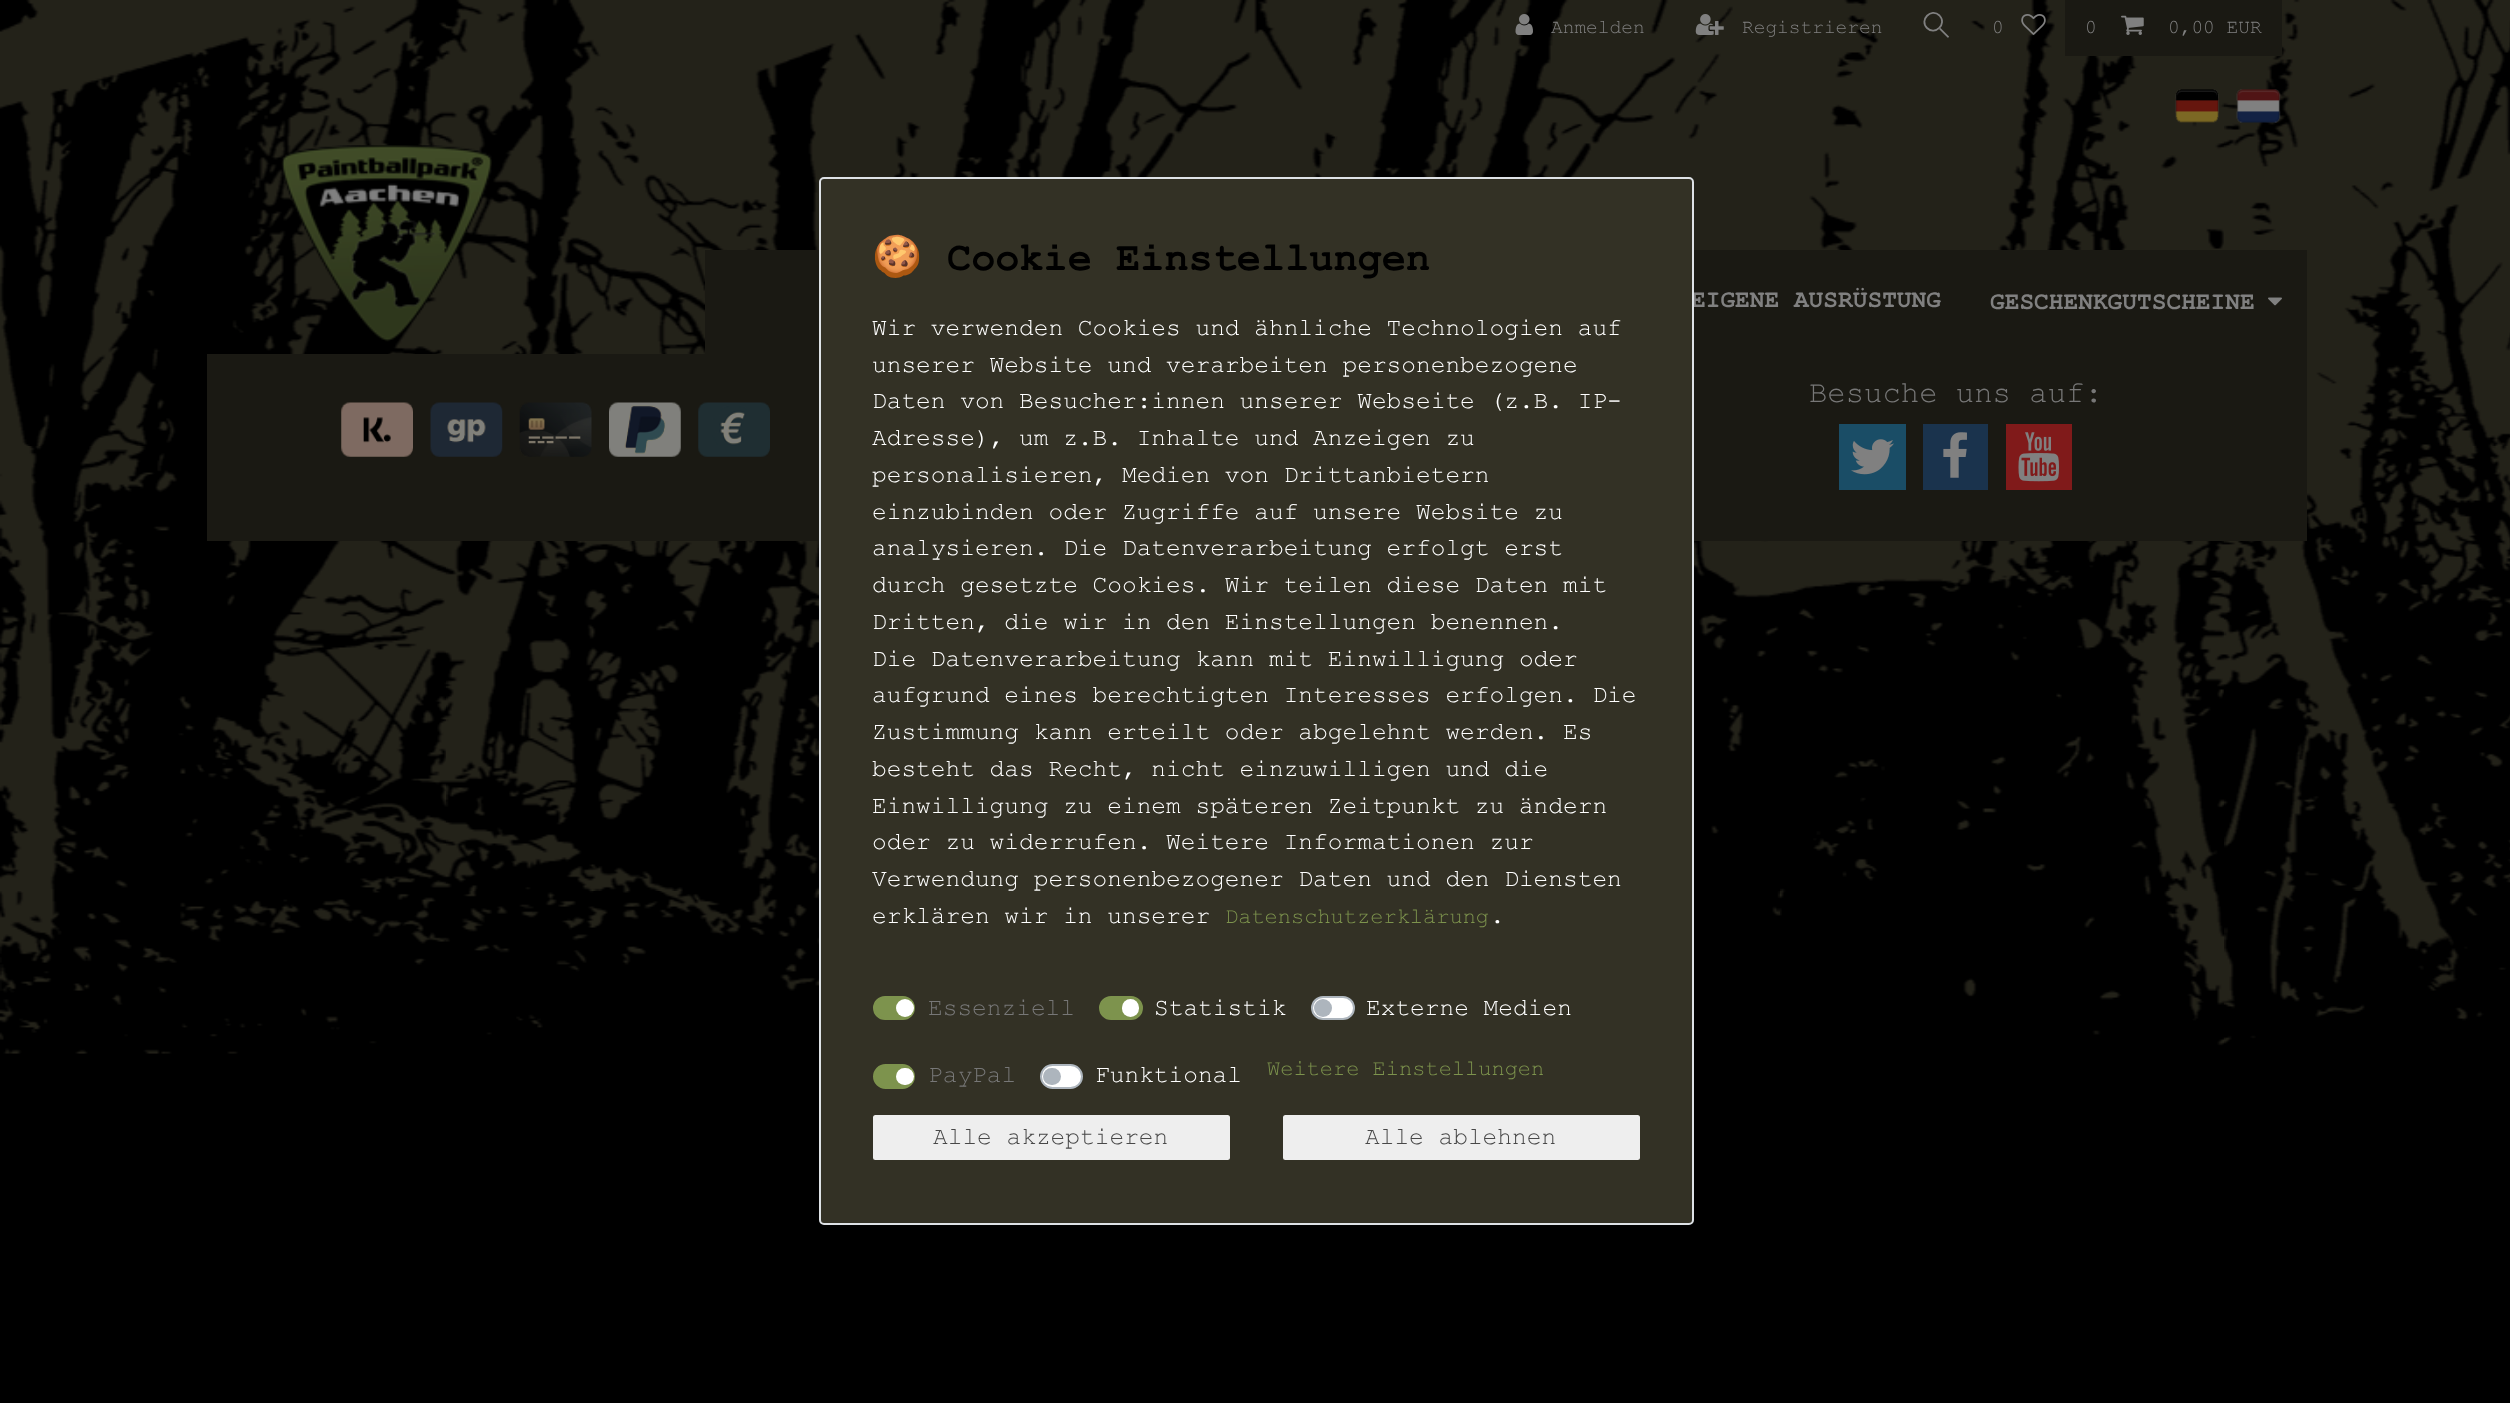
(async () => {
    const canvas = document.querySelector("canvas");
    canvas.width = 2510;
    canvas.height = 1403;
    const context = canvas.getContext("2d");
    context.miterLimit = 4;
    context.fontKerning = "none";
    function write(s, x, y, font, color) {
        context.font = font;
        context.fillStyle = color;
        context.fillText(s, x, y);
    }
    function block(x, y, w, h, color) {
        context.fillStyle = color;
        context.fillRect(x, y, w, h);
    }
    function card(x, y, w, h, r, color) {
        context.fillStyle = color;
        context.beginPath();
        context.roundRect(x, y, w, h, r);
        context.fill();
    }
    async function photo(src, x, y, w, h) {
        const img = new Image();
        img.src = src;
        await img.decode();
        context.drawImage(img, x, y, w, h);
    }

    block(0, 0, 2510, 1403, "rgb(0, 0, 0)");
    await photo("media/1.png", 0, 0, 2510, 1054);
    await photo("media/2.png", 1515, 14, 18, 21);
    write("Anmelden", 1551, 33, "19.5px Courier New", "rgb(128, 128, 128)");
    await photo("media/3.png", 1695, 14, 29, 21);
    write("Registrieren", 1742, 33, "19.5px Courier New", "rgb(128, 128, 128)");
    context.beginPath();
    context.moveTo(1947.5, 37.5);
    context.lineTo(1930, 20);
    context.lineTo(1930, 19);
    context.bezierCurveTo(1930, 18.5, 1930.5, 18.5, 1931, 18.5);
    context.lineTo(1949, 36.5);
    context.bezierCurveTo(1949, 37.5, 1948, 38, 1947.5, 37.5);
    context.closePath();
    context.fill();
    context.fillStyle = "rgb(35, 34, 25)";
    context.beginPath();
    context.moveTo(1926.5, 28.5);
    context.bezierCurveTo(1917.5, 20, 1931, 6, 1940, 15);
    context.bezierCurveTo(1949, 24, 1935.5, 37.5, 1926.5, 28.5);
    context.closePath();
    context.fill();
    context.beginPath();
    context.moveTo(1927, 28);
    context.bezierCurveTo(1919, 20, 1931, 7.5, 1939.5, 15.5);
    context.bezierCurveTo(1947.5, 24, 1935, 36, 1927, 28);
    context.closePath();
    context.strokeStyle = "rgb(128, 128, 128)";
    context.lineWidth = 1.8;
    context.stroke();
    write("0", 1992, 33, "19.5px Courier New", "rgb(128, 128, 128)");
    await photo("media/4.png", 2021, 14, 25, 21);
    block(2065, 0, 217, 56, "rgb(26, 25, 19)");
    write("0", 2085, 33, "19.5px Courier New", "rgb(128, 128, 128)");
    await photo("media/5.png", 2121, 15, 23, 20);
    write("0,00 EUR", 2168, 33, "19.5px Courier New", "rgb(128, 128, 128)");
    await photo("media/6.png", 2175, 89, 44, 34);
    await photo("media/7.png", 2236, 89, 45, 34);
    await photo("media/8.png", 281, 145, 211, 197);
    block(705, 250, 1602, 104, "rgb(26, 25, 19)");
    write("EIGENE AUSRÜSTUNG", 1691, 307, "bold 24.5px Courier New", "rgb(128, 128, 128)");
    write("GESCHENKGUTSCHEINE", 1990, 309, "bold 24.5px Courier New", "rgb(128, 128, 128)");
    await photo("media/9.png", 2268, 297, 14, 9);
    block(207, 354, 2100, 187, "rgb(26, 25, 19)");
    context.fillStyle = "rgb(51, 49, 37)";
    context.beginPath();
    context.roundRect(820, 178, 873, 1046, 4);
    context.fill();
    context.strokeStyle = "rgb(222, 226, 230)";
    context.lineWidth = 2;
    context.stroke();
    write("🍪", 872, 270, "bold 40.25px Noto Color Emoji", "rgb(0, 0, 0)");
    write("Cookie Einstellungen", 947, 270, "bold 40.25px Courier New", "rgb(0, 0, 0)");
    write("Wir verwenden Cookies und ähnliche Technologien auf", 872, 335, "24.5px Courier New", "rgb(255, 255, 255)");
    write("unserer Website und verarbeiten personenbezogene", 872, 372, "24.5px Courier New", "rgb(255, 255, 255)");
    write("Daten von Besucher:innen unserer Webseite (z.B. IP-", 872, 408, "24.5px Courier New", "rgb(255, 255, 255)");
    write("Adresse), um z.B. Inhalte und Anzeigen zu", 872, 445, "24.5px Courier New", "rgb(255, 255, 255)");
    write("personalisieren, Medien von Drittanbietern", 872, 482, "24.5px Courier New", "rgb(255, 255, 255)");
    write("einzubinden oder Zugriffe auf unsere Website zu", 872, 519, "24.5px Courier New", "rgb(255, 255, 255)");
    write("analysieren. Die Datenverarbeitung erfolgt erst", 872, 555, "24.5px Courier New", "rgb(255, 255, 255)");
    write("durch gesetzte Cookies. Wir teilen diese Daten mit", 872, 592, "24.5px Courier New", "rgb(255, 255, 255)");
    write("Dritten, die wir in den Einstellungen benennen.", 872, 629, "24.5px Courier New", "rgb(255, 255, 255)");
    write("Die Datenverarbeitung kann mit Einwilligung oder", 872, 666, "24.5px Courier New", "rgb(255, 255, 255)");
    write("aufgrund eines berechtigten Interesses erfolgen. Die", 872, 702, "24.5px Courier New", "rgb(255, 255, 255)");
    write("Zustimmung kann erteilt oder abgelehnt werden. Es", 872, 739, "24.5px Courier New", "rgb(255, 255, 255)");
    write("besteht das Recht, nicht einzuwilligen und die", 872, 776, "24.5px Courier New", "rgb(255, 255, 255)");
    write("Einwilligung zu einem späteren Zeitpunkt zu ändern", 872, 813, "24.5px Courier New", "rgb(255, 255, 255)");
    write("oder zu widerrufen. Weitere Informationen zur", 872, 849, "24.5px Courier New", "rgb(255, 255, 255)");
    write("Verwendung personenbezogener Daten und den Diensten", 872, 886, "24.5px Courier New", "rgb(255, 255, 255)");
    write("erklären wir in unserer", 872, 923, "24.5px Courier New", "rgb(255, 255, 255)");
    write("Datenschutzerklärung", 1225, 923, "22px Courier New", "rgb(125, 147, 77)");
    write(".", 1490, 923, "24.5px Courier New", "rgb(255, 255, 255)");
    context.fillStyle = "rgb(125, 147, 77)";
    context.beginPath();
    context.roundRect(874, 997, 40, 22, 11);
    context.fill();
    context.strokeStyle = "rgb(125, 147, 77)";
    context.stroke();
    context.fillStyle = "rgb(255, 255, 255)";
    context.beginPath();
    context.arc(905, 1008, 9, 0, Math.PI * 2);
    context.fill();
    write("Essenziell", 928, 1015, "24.5px Courier New", "rgb(119, 119, 119)");
    context.fillStyle = "rgb(125, 147, 77)";
    context.beginPath();
    context.roundRect(1100, 997, 42, 22, 11);
    context.fill();
    context.stroke();
    card(1122, 999, 17, 18, 8.5, "rgb(255, 255, 255)");
    write("Statistik", 1154, 1015, "24.5px Courier New", "rgb(255, 255, 255)");
    context.beginPath();
    context.roundRect(1312, 997, 42, 22, 11);
    context.fill();
    context.strokeStyle = "rgb(173, 181, 189)";
    context.stroke();
    context.fillStyle = "rgb(173, 181, 189)";
    context.beginPath();
    context.arc(1323, 1008, 9, 0, Math.PI * 2);
    context.fill();
    write("Externe Medien", 1366, 1015, "24.5px Courier New", "rgb(255, 255, 255)");
    context.fillStyle = "rgb(125, 147, 77)";
    context.beginPath();
    context.roundRect(874, 1065, 40, 23, 11.5);
    context.fill();
    context.strokeStyle = "rgb(125, 147, 77)";
    context.stroke();
    write("PayPal", 928, 1082, "24.5px Courier New", "rgb(119, 119, 119)");
    card(896, 1068, 18, 17, 8.5, "rgb(255, 255, 255)");
    context.beginPath();
    context.roundRect(1041, 1065, 41, 23, 11.5);
    context.fill();
    context.strokeStyle = "rgb(173, 181, 189)";
    context.stroke();
    write("Funktional", 1095, 1082, "24.5px Courier New", "rgb(255, 255, 255)");
    card(1043, 1068, 18, 17, 8.5, "rgb(173, 181, 189)");
    write("Weitere Einstellungen", 1267, 1075, "22px Courier New", "rgb(125, 147, 77)");
    context.fillStyle = "rgb(238, 238, 238)";
    context.beginPath();
    context.roundRect(874, 1116, 355, 43, 1.5);
    context.fill();
    context.strokeStyle = "rgb(238, 238, 238)";
    context.stroke();
    write("Alle akzeptieren", 933, 1144, "24.5px Courier New", "rgb(72, 72, 72)");
    context.fillStyle = "rgb(238, 238, 238)";
    context.beginPath();
    context.roundRect(1284, 1116, 355, 43, 1.5);
    context.fill();
    context.stroke();
    write("Alle ablehnen", 1365, 1144, "24.5px Courier New", "rgb(72, 72, 72)");
    write("Besuche uns auf:", 1809, 402, "30.6px Courier New", "rgb(119, 119, 119)");
    block(1839, 424, 67, 66, "rgb(26, 77, 102)");
    await photo("media/10.png", 1851, 439, 43, 36);
    block(1923, 424, 65, 66, "rgb(26, 51, 77)");
    await photo("media/11.png", 1943, 432, 24, 46);
    block(2006, 424, 66, 66, "rgb(128, 26, 26)");
    await photo("media/12.png", 2018, 432, 41, 50);
    await photo("media/13.png", 341, 402, 72, 55);
    await photo("media/14.png", 430, 402, 73, 55);
    await photo("media/15.png", 519, 402, 73, 55);
    await photo("media/16.png", 609, 402, 72, 55);
    await photo("media/17.png", 698, 402, 72, 55);
})();
